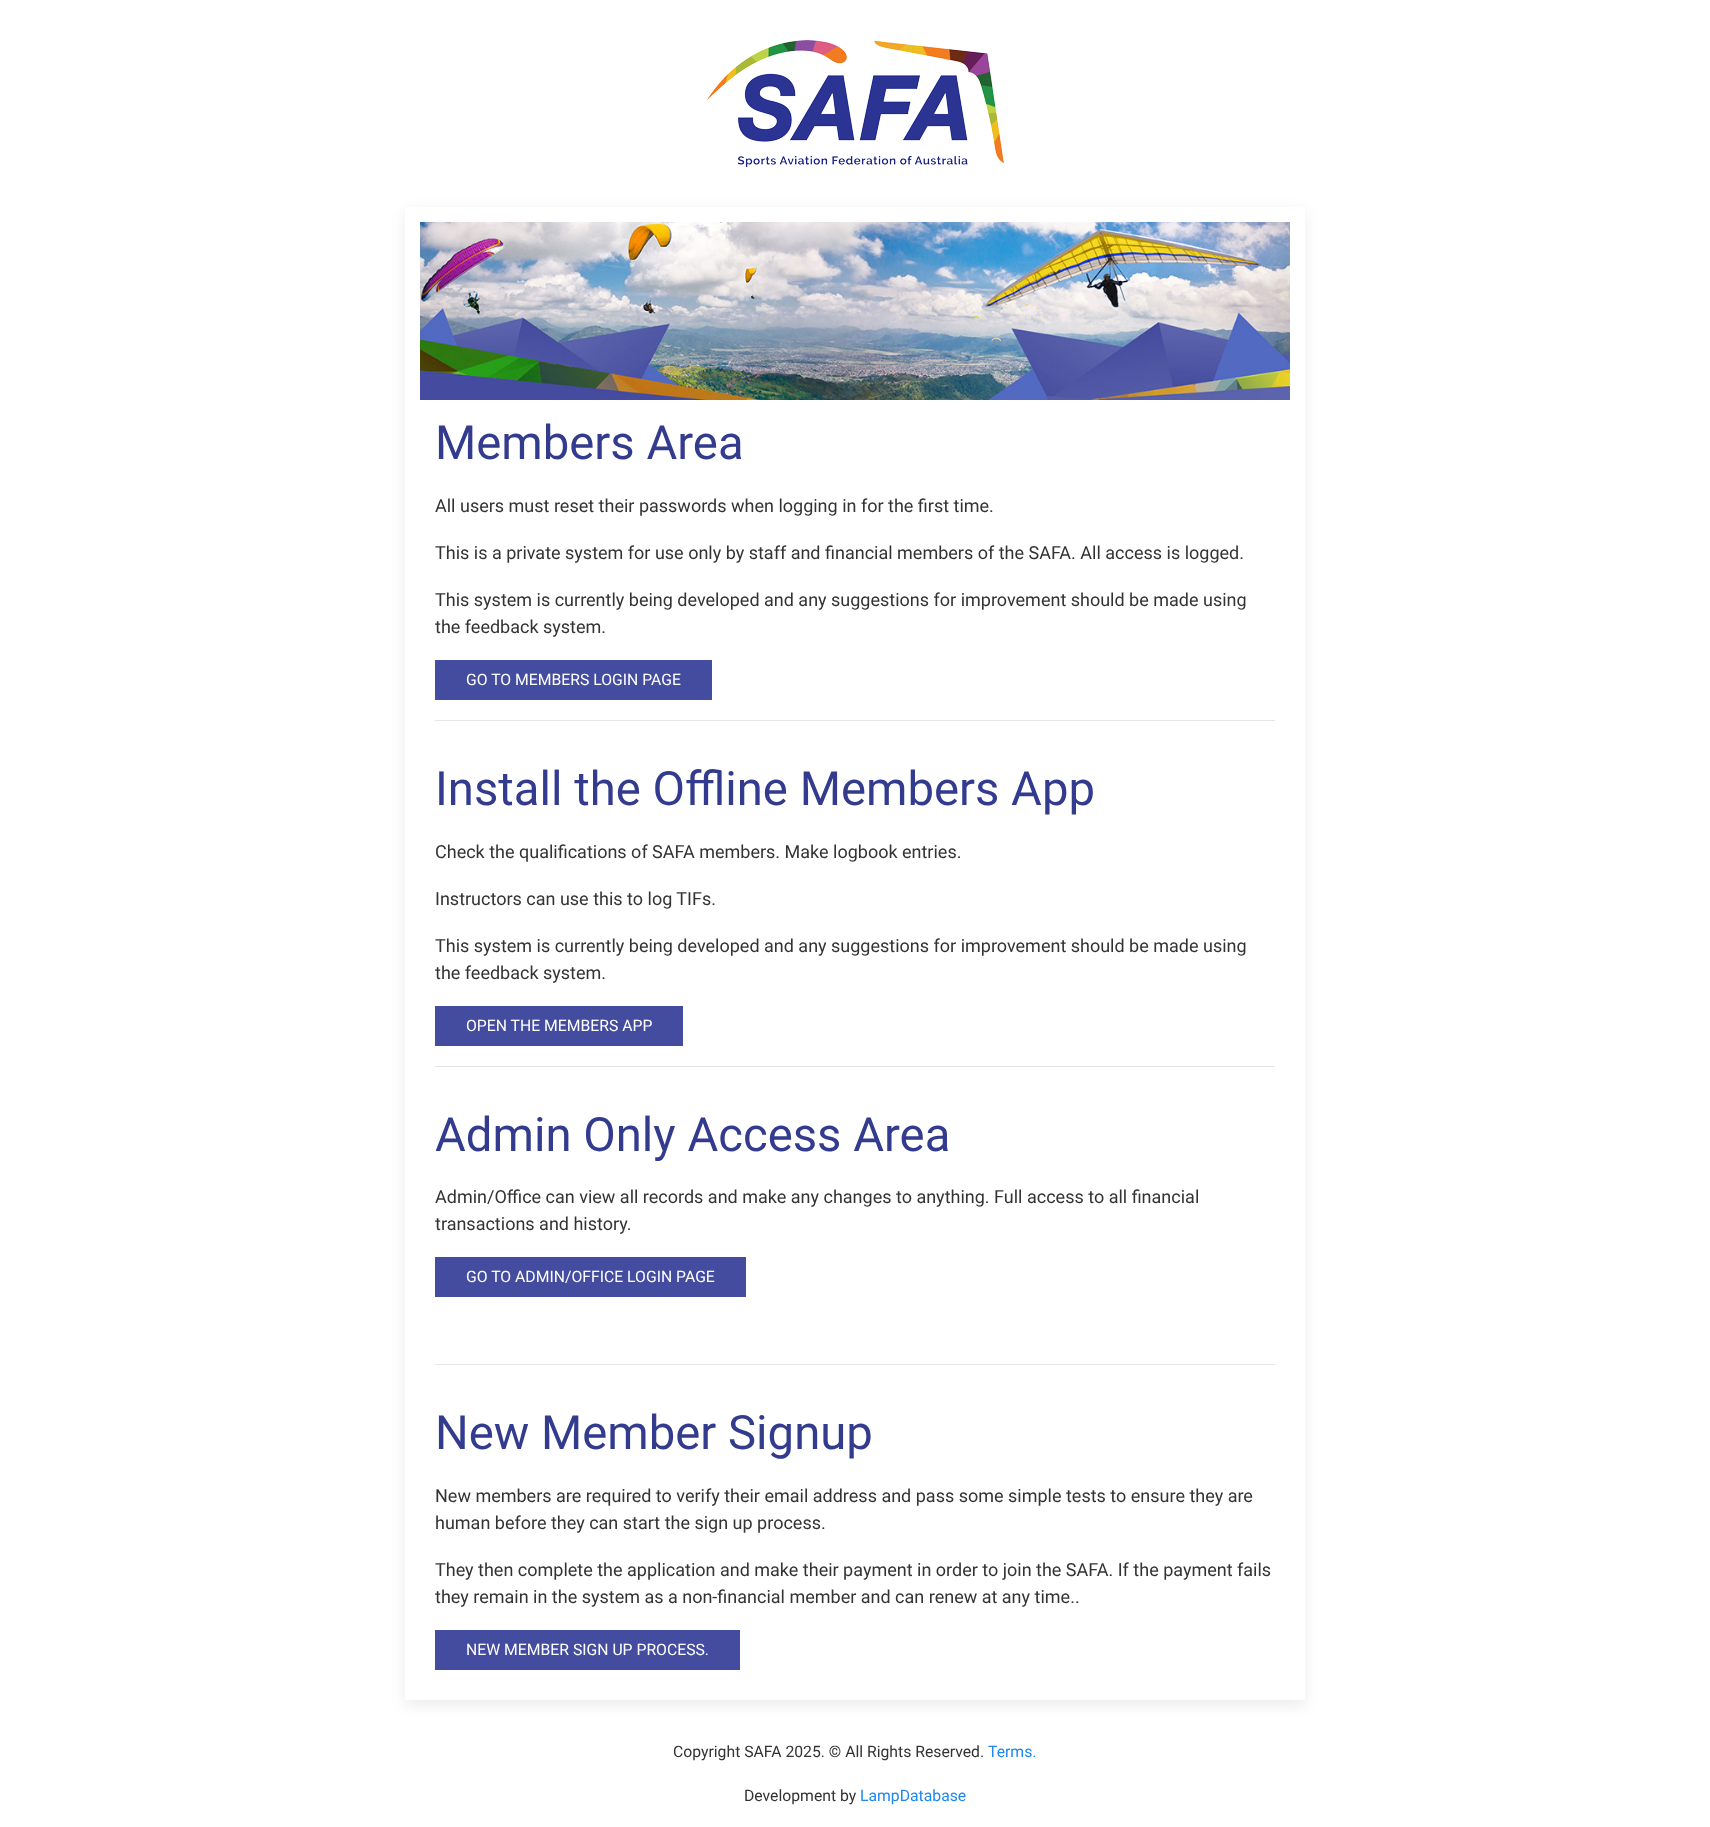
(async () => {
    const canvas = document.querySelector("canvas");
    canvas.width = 1710;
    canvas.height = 1827;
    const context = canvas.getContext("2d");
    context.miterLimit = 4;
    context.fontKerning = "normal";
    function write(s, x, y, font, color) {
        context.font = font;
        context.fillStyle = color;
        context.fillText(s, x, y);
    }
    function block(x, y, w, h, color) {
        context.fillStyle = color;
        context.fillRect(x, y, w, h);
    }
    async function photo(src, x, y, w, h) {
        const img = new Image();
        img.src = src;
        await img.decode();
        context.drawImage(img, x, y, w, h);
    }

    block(0, 0, 1710, 1827, "rgb(255, 255, 255)");
    await photo("media/1.png", 706, 40, 298, 127);
    context.save();
    context.beginPath();
    context.moveTo(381, 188);
    context.lineTo(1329, 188);
    context.lineTo(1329, 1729);
    context.lineTo(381, 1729);
    context.closePath();
    context.moveTo(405, 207);
    context.lineTo(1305, 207);
    context.lineTo(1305, 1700);
    context.lineTo(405, 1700);
    context.closePath();
    context.clip("evenodd");
    context.fillStyle = "rgba(0, 0, 0, 0.08)";
    context.filter = "blur(7.5px)";
    context.beginPath();
    context.rect(405, 212, 900, 1493);
    context.fill();
    context.filter = "none";
    context.restore();
    await photo("media/2.png", 420, 222, 870, 178);
    write("Members Area", 435, 459, "47.25px Roboto", "rgb(51, 59, 142)");
    write("All users must reset their passwords when logging in for the first time.", 435, 512, "18px Roboto", "rgb(51, 51, 51)");
    write("This is a private system for use only by staff and financial members of the SAFA. All access is logged.", 435, 559, "18px Roboto", "rgb(51, 51, 51)");
    write("This system is currently being developed and any suggestions for improvement should be made using", 435, 606, "18px Roboto", "rgb(51, 51, 51)");
    write("the feedback system.", 435, 633, "18px Roboto", "rgb(51, 51, 51)");
    block(435, 660, 277, 40, "rgb(68, 76, 159)");
    write("GO TO MEMBERS LOGIN PAGE", 466, 685, "15.75px Roboto", "rgb(255, 255, 255)");
    block(435, 720, 840, 1, "rgb(229, 229, 229)");
    write("Install the Offline Members App", 435, 805, "47.25px Roboto", "rgb(51, 59, 142)");
    write("Check the qualifications of SAFA members. Make logbook entries.", 435, 858, "18px Roboto", "rgb(51, 51, 51)");
    write("Instructors can use this to log TIFs.", 435, 905, "18px Roboto", "rgb(51, 51, 51)");
    write("This system is currently being developed and any suggestions for improvement should be made using", 435, 952, "18px Roboto", "rgb(51, 51, 51)");
    write("the feedback system.", 435, 979, "18px Roboto", "rgb(51, 51, 51)");
    block(435, 1006, 248, 40, "rgb(68, 76, 159)");
    write("OPEN THE MEMBERS APP", 466, 1031, "15.75px Roboto", "rgb(255, 255, 255)");
    block(435, 1066, 840, 1, "rgb(229, 229, 229)");
    write("Admin Only Access Area", 435, 1151, "47.25px Roboto", "rgb(51, 59, 142)");
    write("Admin/Office can view all records and make any changes to anything. Full access to all financial", 435, 1203, "18px Roboto", "rgb(51, 51, 51)");
    write("transactions and history.", 435, 1230, "18px Roboto", "rgb(51, 51, 51)");
    block(435, 1257, 311, 40, "rgb(68, 76, 159)");
    write("GO TO ADMIN/OFFICE LOGIN PAGE", 466, 1282, "15.75px Roboto", "rgb(255, 255, 255)");
    block(435, 1364, 840, 1, "rgb(229, 229, 229)");
    write("New Member Signup", 435, 1449, "47.25px Roboto", "rgb(51, 59, 142)");
    write("New members are required to verify their email address and pass some simple tests to ensure they are", 435, 1502, "18px Roboto", "rgb(51, 51, 51)");
    write("human before they can start the sign up process.", 435, 1529, "18px Roboto", "rgb(51, 51, 51)");
    write("They then complete the application and make their payment in order to join the SAFA. If the payment fails", 435, 1576, "18px Roboto", "rgb(51, 51, 51)");
    write("they remain in the system as a non-financial member and can renew at any time..", 435, 1603, "18px Roboto", "rgb(51, 51, 51)");
    block(435, 1630, 305, 40, "rgb(68, 76, 159)");
    write("NEW MEMBER SIGN UP PROCESS.", 466, 1655, "15.75px Roboto", "rgb(255, 255, 255)");
    write("Copyright SAFA 2025. © All Rights Reserved.", 673, 1757, "15.75px Roboto", "rgb(51, 51, 51)");
    write("Terms.", 988, 1757, "15.75px Roboto", "rgb(30, 135, 240)");
    write("Development by", 744, 1801, "15.75px Roboto", "rgb(51, 51, 51)");
    write("LampDatabase", 860, 1801, "15.75px Roboto", "rgb(30, 135, 240)");
})();
